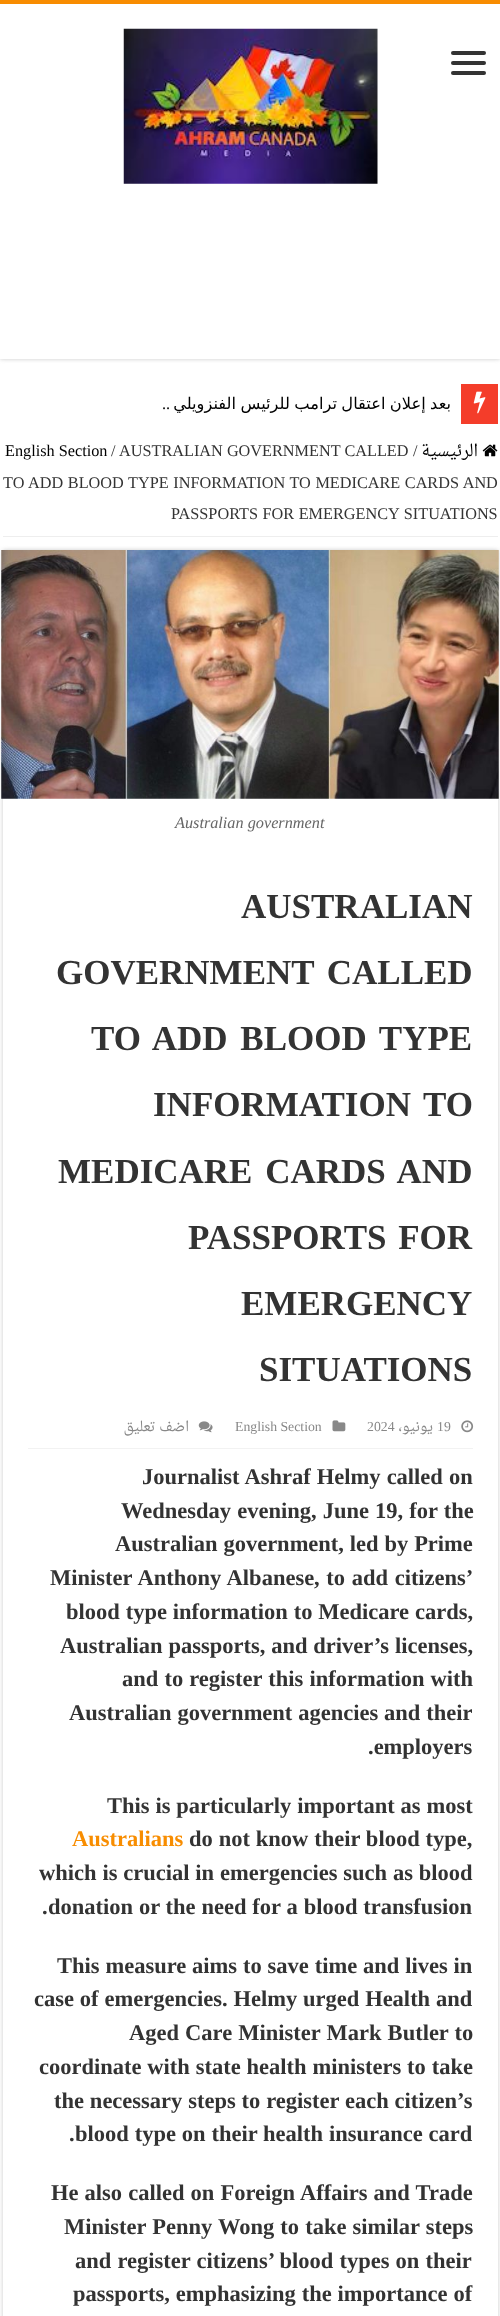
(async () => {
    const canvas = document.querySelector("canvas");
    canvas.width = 500;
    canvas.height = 2316;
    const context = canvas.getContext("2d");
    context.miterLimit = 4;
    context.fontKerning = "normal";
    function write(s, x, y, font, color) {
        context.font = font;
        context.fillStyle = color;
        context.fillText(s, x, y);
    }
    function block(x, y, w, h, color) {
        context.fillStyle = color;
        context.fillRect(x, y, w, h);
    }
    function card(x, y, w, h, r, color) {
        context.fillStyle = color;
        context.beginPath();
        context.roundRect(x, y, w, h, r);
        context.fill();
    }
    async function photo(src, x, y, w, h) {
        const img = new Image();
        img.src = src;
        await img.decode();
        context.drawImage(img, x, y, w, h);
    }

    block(0, 0, 500, 2316, "rgb(255, 255, 255)");
    context.fillStyle = "rgb(202, 202, 202)";
    context.filter = "blur(2px)";
    context.beginPath();
    context.rect(0, 0, 500, 359);
    context.fill();
    context.filter = "none";
    block(0, 4, 500, 355, "rgb(255, 255, 255)");
    block(0, 0, 500, 4, "rgb(248, 140, 0)");
    await photo("media/1.png", 123, 28, 255, 156);
    card(451, 51, 35, 4, 2, "rgb(51, 51, 51)");
    card(451, 61, 35, 4, 2, "rgb(51, 51, 51)");
    card(451, 71, 35, 4, 2, "rgb(51, 51, 51)");
    context.fillStyle = "rgb(202, 202, 202)";
    context.filter = "blur(0.5px)";
    context.beginPath();
    context.rect(3, 384, 495, 40);
    context.fill();
    context.filter = "none";
    block(3, 384, 458, 40, "rgb(255, 255, 255)");
    context.direction = "rtl";
    write("..", 170, 409, "16.25px Liberation Serif", "rgb(0, 0, 0)");
    context.wordSpacing = "-0.75px";
    write("بعد إعلان اعتقال ترامب للرئيس الفنزويلي", 451, 409, "16.25px DejaVu Sans", "rgb(0, 0, 0)");
    block(461, 384, 37, 40, "rgb(244, 61, 42)");
    await photo("media/2.png", 473, 391, 13, 23);
    block(3, 536, 495, 1, "rgb(238, 238, 238)");
    context.wordSpacing = "0px";
    context.direction = "ltr";
    write("English Section", 5, 456, "16.25px Liberation Serif", "rgb(0, 0, 0)");
    write("/", 111, 456, "16.25px Liberation Serif", "rgb(51, 51, 51)");
    write("AUSTRALIAN GOVERNMENT CALLED", 119, 456, "16.25px Liberation Serif", "rgb(51, 51, 51)");
    write("/", 413, 456, "16.25px Liberation Serif", "rgb(51, 51, 51)");
    context.direction = "rtl";
    write("الرئيسية", 478, 456, "16.25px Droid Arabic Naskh", "rgb(0, 0, 0)");
    await photo("media/3.png", 482, 444, 16, 13);
    context.wordSpacing = "0.5px";
    context.direction = "ltr";
    write("TO ADD BLOOD TYPE INFORMATION TO MEDICARE CARDS AND", 3, 488, "16.25px Liberation Serif", "rgb(51, 51, 51)");
    write("PASSPORTS FOR EMERGENCY SITUATIONS", 171, 519, "16.25px Liberation Serif", "rgb(51, 51, 51)");
    context.fillStyle = "rgb(202, 202, 202)";
    context.filter = "blur(2px)";
    context.beginPath();
    context.rect(3, 550, 495, 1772);
    context.fill();
    context.filter = "none";
    block(3, 798, 495, 1518, "rgb(255, 255, 255)");
    await photo("media/4.png", 1, 550, 498, 249);
    context.wordSpacing = "0px";
    write("Australian government", 175, 828, "italic 16.25px Liberation Serif", "rgb(102, 102, 102)");
    write("AUSTRALIAN", 241, 918, "bold 35px Liberation Serif", "rgb(51, 51, 51)");
    context.wordSpacing = "4px";
    write("GOVERNMENT CALLED", 56, 984, "bold 35px Liberation Serif", "rgb(51, 51, 51)");
    write("TO ADD BLOOD TYPE", 91, 1050, "bold 35px Liberation Serif", "rgb(51, 51, 51)");
    write("INFORMATION TO", 153, 1116, "bold 35px Liberation Serif", "rgb(51, 51, 51)");
    write("MEDICARE CARDS AND", 58, 1183, "bold 35px Liberation Serif", "rgb(51, 51, 51)");
    context.wordSpacing = "3px";
    write("PASSPORTS FOR", 188, 1249, "bold 35px Liberation Serif", "rgb(51, 51, 51)");
    context.wordSpacing = "0px";
    write("EMERGENCY", 241, 1315, "bold 35px Liberation Serif", "rgb(51, 51, 51)");
    write("SITUATIONS", 259, 1381, "bold 35px Liberation Serif", "rgb(51, 51, 51)");
    block(28, 1448, 445, 1, "rgb(242, 242, 242)");
    context.direction = "rtl";
    write("اضف تعليق", 189, 1431, "13.75px Droid Arabic Naskh", "rgb(136, 136, 136)");
    await photo("media/5.png", 198, 1421, 15, 12);
    context.direction = "ltr";
    write("English Section", 235, 1431, "13.75px Liberation Serif", "rgb(136, 136, 136)");
    await photo("media/6.png", 332, 1420, 14, 12);
    write("2024", 367, 1431, "13.75px Liberation Serif", "rgb(136, 136, 136)");
    context.direction = "rtl";
    write("يونيو،", 433, 1431, "13.75px Droid Arabic Naskh", "rgb(136, 136, 136)");
    context.direction = "ltr";
    write("19", 437, 1431, "13.75px Liberation Serif", "rgb(136, 136, 136)");
    await photo("media/7.png", 461, 1420, 13, 13);
    context.wordSpacing = "0.5px";
    write("Journalist Ashraf Helmy called on", 142, 1484, "bold 22.5px Liberation Serif", "rgb(51, 51, 51)");
    write("Wednesday evening, June 19, for the", 121, 1518, "bold 22.5px Liberation Serif", "rgb(51, 51, 51)");
    context.wordSpacing = "0.25px";
    write("Australian government, led by Prime", 115, 1551, "bold 22.5px Liberation Serif", "rgb(51, 51, 51)");
    context.wordSpacing = "1px";
    write("Minister Anthony Albanese, to add citizens’", 50, 1585, "bold 22.5px Liberation Serif", "rgb(51, 51, 51)");
    context.wordSpacing = "0.25px";
    write("blood type information to Medicare cards,", 66, 1619, "bold 22.5px Liberation Serif", "rgb(51, 51, 51)");
    write("Australian passports, and driver’s licenses,", 60, 1653, "bold 22.5px Liberation Serif", "rgb(51, 51, 51)");
    context.wordSpacing = "0.5px";
    write("and to register this information with", 122, 1686, "bold 22.5px Liberation Serif", "rgb(51, 51, 51)");
    context.wordSpacing = "0.25px";
    write("Australian government agencies and their", 69, 1720, "bold 22.5px Liberation Serif", "rgb(51, 51, 51)");
    context.wordSpacing = "0px";
    write(".employers", 368, 1754, "bold 22.5px Liberation Serif", "rgb(51, 51, 51)");
    context.wordSpacing = "0.25px";
    write("This is particularly important as most", 107, 1813, "bold 22.5px Liberation Serif", "rgb(51, 51, 51)");
    context.wordSpacing = "0px";
    write("Australians", 72, 1846, "bold 22.5px Liberation Serif", "rgb(248, 141, 0)");
    context.wordSpacing = "0.25px";
    write("do not know their blood type,", 189, 1846, "bold 22.5px Liberation Serif", "rgb(51, 51, 51)");
    write("which is crucial in emergencies such as blood", 39, 1880, "bold 22.5px Liberation Serif", "rgb(51, 51, 51)");
    context.wordSpacing = "0px";
    write(".", 42, 1914, "bold 22.5px Liberation Serif", "rgb(51, 51, 51)");
    context.wordSpacing = "0.25px";
    write("donation or the need for a blood transfusion", 48, 1914, "bold 22.5px Liberation Serif", "rgb(51, 51, 51)");
    write("This measure aims to save time and lives in", 57, 1973, "bold 22.5px Liberation Serif", "rgb(51, 51, 51)");
    write("case of emergencies. Helmy urged Health and", 34, 2006, "bold 22.5px Liberation Serif", "rgb(51, 51, 51)");
    context.wordSpacing = "0.5px";
    write("Aged Care Minister Mark Butler to", 129, 2040, "bold 22.5px Liberation Serif", "rgb(51, 51, 51)");
    context.wordSpacing = "0.25px";
    write("coordinate with state health ministers to take", 39, 2074, "bold 22.5px Liberation Serif", "rgb(51, 51, 51)");
    write("the necessary steps to register each citizen’s", 54, 2108, "bold 22.5px Liberation Serif", "rgb(51, 51, 51)");
    context.wordSpacing = "0px";
    write(".", 69, 2141, "bold 22.5px Liberation Serif", "rgb(51, 51, 51)");
    context.wordSpacing = "0.25px";
    write("blood type on their health insurance card", 75, 2141, "bold 22.5px Liberation Serif", "rgb(51, 51, 51)");
    context.wordSpacing = "0.5px";
    write("He also called on Foreign Affairs and Trade", 51, 2200, "bold 22.5px Liberation Serif", "rgb(51, 51, 51)");
    write("Minister Penny Wong to take similar steps", 64, 2234, "bold 22.5px Liberation Serif", "rgb(51, 51, 51)");
    write("and register citizens’ blood types on their", 75, 2268, "bold 22.5px Liberation Serif", "rgb(51, 51, 51)");
    context.wordSpacing = "0.25px";
    write("passports, emphasizing the importance of", 73, 2301, "bold 22.5px Liberation Serif", "rgb(51, 51, 51)");
})();
